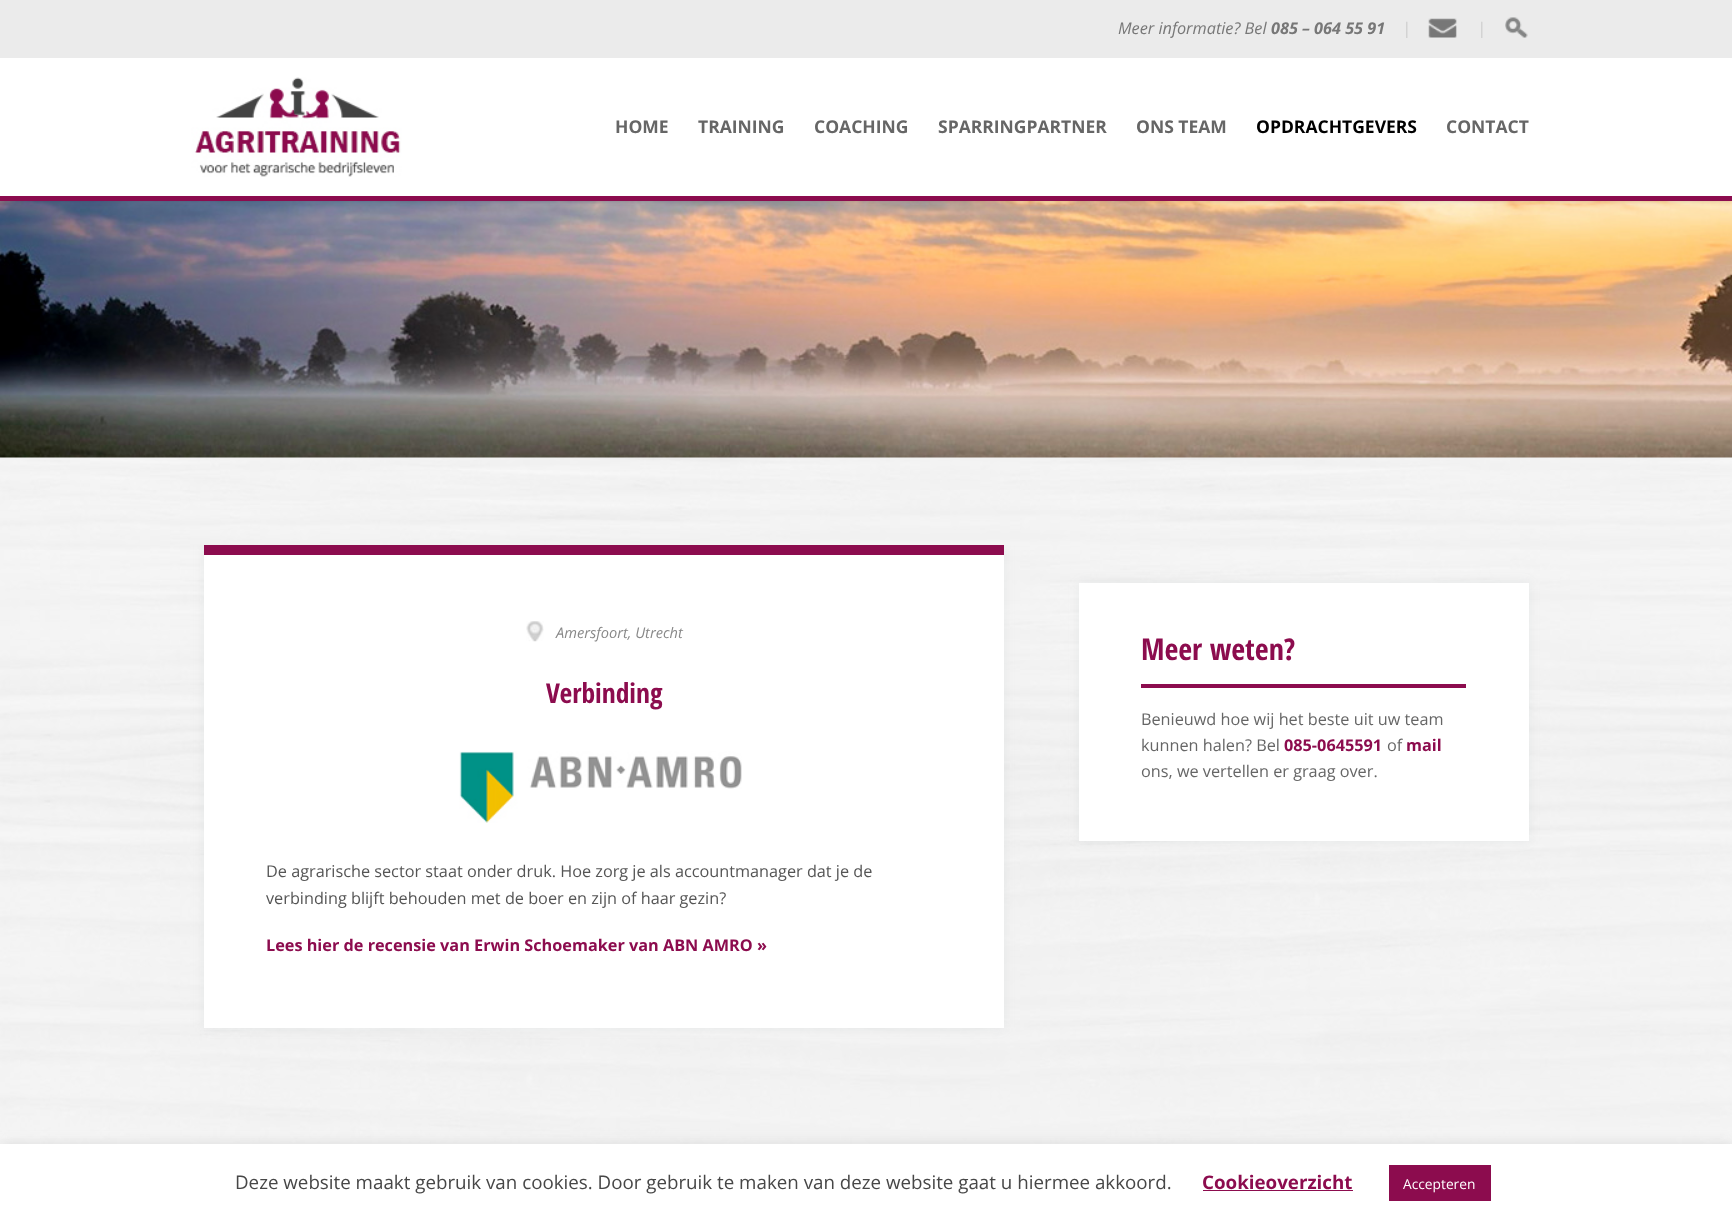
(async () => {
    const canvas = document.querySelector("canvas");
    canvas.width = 1732;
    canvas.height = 1222;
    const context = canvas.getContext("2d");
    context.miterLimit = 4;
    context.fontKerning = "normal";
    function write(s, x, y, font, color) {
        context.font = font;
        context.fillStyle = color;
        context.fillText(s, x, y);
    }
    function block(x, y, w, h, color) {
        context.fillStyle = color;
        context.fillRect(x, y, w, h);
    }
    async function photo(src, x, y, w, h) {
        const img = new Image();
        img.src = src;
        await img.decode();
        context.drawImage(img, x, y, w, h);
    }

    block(0, 0, 1732, 1222, "rgb(255, 255, 255)");
    await photo("media/1.png", 0, 457, 1732, 687);
    await photo("media/5.png", 0, 201, 1732, 257);
    context.fillStyle = "rgba(50, 50, 50, 0.2)";
    context.filter = "blur(2.5px)";
    context.beginPath();
    context.rect(0, 58, 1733, 143);
    context.fill();
    context.filter = "none";
    block(0, 0, 1732, 58, "rgb(235, 235, 235)");
    write("Meer informatie? Bel", 1118, 34, "italic 16.25px Open Sans", "rgb(119, 119, 119)");
    write("085 – 064 55 91", 1271, 34, "italic bold 16.25px Open Sans", "rgb(119, 119, 119)");
    write("|", 1402, 34, "italic 16.25px Open Sans", "rgb(204, 204, 204)");
    await photo("media/2.png", 1428, 18, 29, 20);
    write("|", 1477, 34, "italic 16.25px Open Sans", "rgb(204, 204, 204)");
    await photo("media/3.png", 1505, 17, 23, 21);
    block(0, 58, 1732, 138, "rgb(255, 255, 255)");
    block(0, 196, 1732, 5, "rgb(140, 12, 78)");
    await photo("media/4.png", 191, 58, 213, 119);
    write("HOME", 615, 133, "bold 17.5px Open Sans", "rgb(102, 102, 102)");
    write("TRAINING", 698, 133, "bold 17.5px Open Sans", "rgb(102, 102, 102)");
    write("COACHING", 814, 133, "bold 17.5px Open Sans", "rgb(102, 102, 102)");
    write("SPARRINGPARTNER", 938, 133, "bold 17.5px Open Sans", "rgb(102, 102, 102)");
    write("ONS TEAM", 1136, 133, "bold 17.5px Open Sans", "rgb(102, 102, 102)");
    write("OPDRACHTGEVERS", 1256, 133, "bold 17.5px Open Sans", "rgb(0, 0, 0)");
    write("CONTACT", 1446, 133, "bold 17.5px Open Sans", "rgb(102, 102, 102)");
    context.save();
    context.beginPath();
    context.rect(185, 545, 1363, 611);
    context.clip();
    context.fillStyle = "rgba(130, 142, 148, 0.1)";
    context.filter = "blur(6px)";
    context.beginPath();
    context.rect(204, 545, 800, 483);
    context.fill();
    context.filter = "none";
    context.restore();
    block(204, 555, 800, 473, "rgb(255, 255, 255)");
    block(204, 545, 800, 10, "rgb(140, 12, 78)");
    await photo("media/6.png", 526, 621, 18, 21);
    write("Amersfoort, Utrecht", 556, 638, "italic 14.6px Open Sans", "rgb(136, 136, 136)");
    write("Verbinding", 546, 703, "bold 27.5px Open Sans Condensed", "rgb(140, 12, 78)");
    await photo("media/7.png", 459, 751, 283, 72);
    write("De agrarische sector staat onder druk. Hoe zorg je als accountmanager dat je de", 266, 877, "16.25px Open Sans", "rgb(85, 85, 85)");
    write("verbinding blijft behouden met de boer en zijn of haar gezin?", 266, 904, "16.25px Open Sans", "rgb(85, 85, 85)");
    write("Lees hier de recensie van Erwin Schoemaker van ABN AMRO »", 266, 951, "bold 16.25px Open Sans", "rgb(140, 12, 78)");
    context.fillStyle = "rgba(130, 142, 148, 0.1)";
    context.filter = "blur(6px)";
    context.beginPath();
    context.rect(1079, 583, 450, 258);
    context.fill();
    context.filter = "none";
    block(1079, 583, 450, 258, "rgb(255, 255, 255)");
    block(1141, 684, 325, 4, "rgb(140, 12, 78)");
    write("Meer weten?", 1141, 660, "bold 30px Open Sans Condensed", "rgb(140, 12, 78)");
    write("Benieuwd hoe wij het beste uit uw team", 1141, 725, "16.25px Open Sans", "rgb(102, 102, 102)");
    write("kunnen halen? Bel", 1141, 751, "16.25px Open Sans", "rgb(102, 102, 102)");
    write("085-0645591", 1284, 751, "bold 16.25px Open Sans", "rgb(140, 12, 78)");
    write("of", 1387, 751, "16.25px Open Sans", "rgb(102, 102, 102)");
    write("mail", 1406, 751, "bold 16.25px Open Sans", "rgb(140, 12, 78)");
    write("ons, we vertellen er graag over.", 1141, 777, "16.25px Open Sans", "rgb(102, 102, 102)");
    context.fillStyle = "rgba(172, 171, 171, 0.3)";
    context.filter = "blur(6px)";
    context.beginPath();
    context.rect(0, 1143, 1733, 78);
    context.fill();
    context.filter = "none";
    block(0, 1144, 1732, 78, "rgb(255, 255, 255)");
    write("Deze website maakt gebruik van cookies. Door gebruik te maken van deze website gaat u hiermee akkoord.", 235, 1189, "18.75px Open Sans", "rgb(71, 71, 71)");
    write("Cookieoverzicht", 1202, 1189, "bold 18.75px Open Sans", "rgb(140, 12, 78)");
    block(1203, 1190, 150, 1, "rgb(140, 12, 78)");
    block(1389, 1165, 102, 36, "rgb(140, 12, 78)");
    write("Accepteren", 1403, 1189, "13.75px Open Sans", "rgb(255, 255, 255)");
})();
